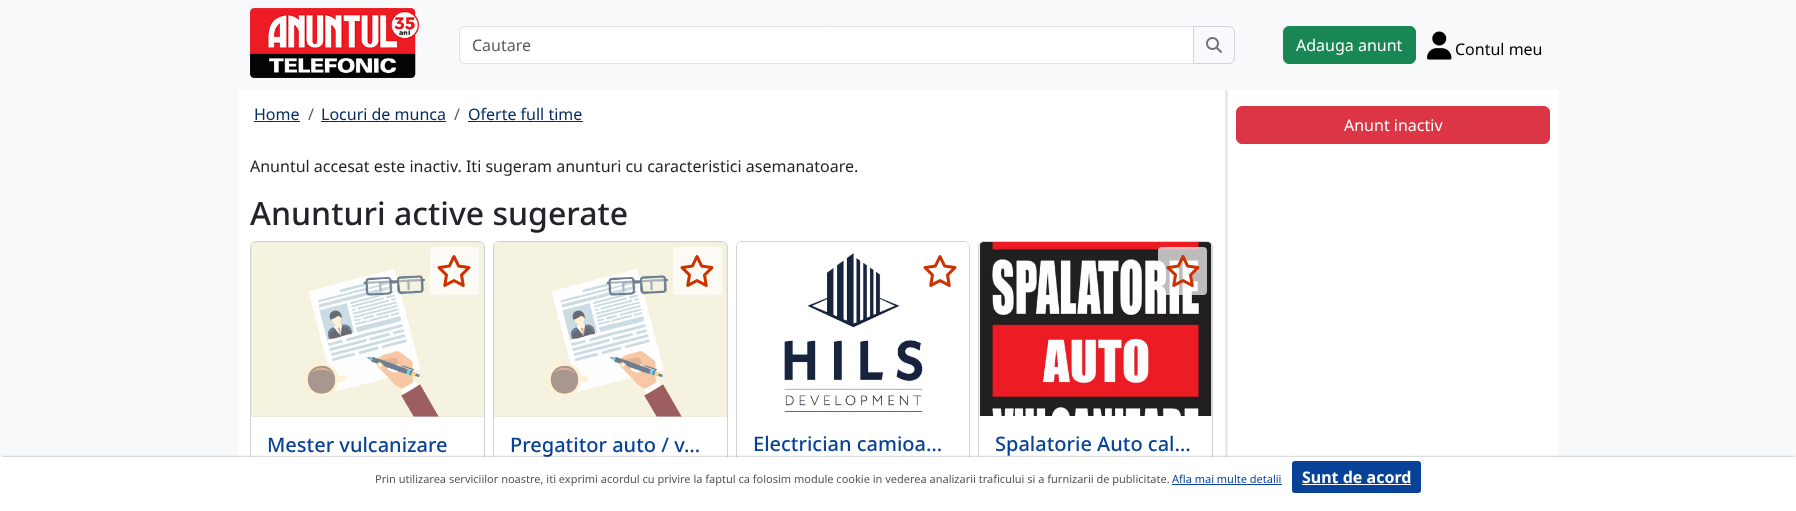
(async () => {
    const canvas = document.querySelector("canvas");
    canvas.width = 1796;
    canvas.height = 511;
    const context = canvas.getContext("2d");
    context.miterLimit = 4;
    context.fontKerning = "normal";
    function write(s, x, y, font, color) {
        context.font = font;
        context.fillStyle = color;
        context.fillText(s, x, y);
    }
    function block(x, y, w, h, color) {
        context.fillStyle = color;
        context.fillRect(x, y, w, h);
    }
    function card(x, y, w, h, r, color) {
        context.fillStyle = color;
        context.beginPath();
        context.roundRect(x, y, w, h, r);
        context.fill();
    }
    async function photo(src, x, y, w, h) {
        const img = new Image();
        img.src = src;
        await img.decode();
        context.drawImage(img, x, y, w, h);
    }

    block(0, 0, 1796, 511, "rgb(248, 249, 250)");
    await photo("media/1.png", 250, 8, 169, 70);
    context.fillStyle = "rgb(255, 255, 255)";
    context.beginPath();
    context.roundRect(459.5, 26.5, 734, 37, [5.5, 0, 0, 5.5]);
    context.fill();
    context.strokeStyle = "rgb(222, 226, 230)";
    context.stroke();
    write("Cautare", 472, 51, "16px Noto Sans", "rgb(89, 92, 95)");
    context.beginPath();
    context.roundRect(1193.5, 26.5, 41, 37, [0, 5.5, 5.5, 0]);
    context.strokeStyle = "rgb(206, 212, 218)";
    context.stroke();
    await photo("media/2.png", 1206, 37, 16, 16);
    context.fillStyle = "rgb(25, 135, 84)";
    context.beginPath();
    context.roundRect(1283.5, 26.5, 132, 37, 5.5);
    context.fill();
    context.strokeStyle = "rgb(25, 135, 84)";
    context.stroke();
    write("Adauga anunt", 1296, 51, "16px Noto Sans", "rgb(255, 255, 255)");
    await photo("media/3.png", 1427, 31, 25, 29);
    write("Contul meu", 1455, 55, "16px Noto Sans", "rgb(0, 0, 0)");
    block(238, 90, 987, 367, "rgb(255, 255, 255)");
    block(1225, 90, 3, 367, "rgb(233, 236, 239)");
    write("Home", 254, 120, "16px Noto Sans", "rgb(5, 44, 101)");
    block(254, 121, 46, 1, "rgb(5, 44, 101)");
    write("/", 308, 120, "16px Noto Sans", "rgb(89, 92, 95)");
    write("Locuri de munca", 321, 120, "16px Noto Sans", "rgb(5, 44, 101)");
    block(321, 121, 125, 1, "rgb(5, 44, 101)");
    write("/", 454, 120, "16px Noto Sans", "rgb(89, 92, 95)");
    write("Oferte full time", 468, 120, "16px Noto Sans", "rgb(5, 44, 101)");
    block(468, 121, 115, 1, "rgb(5, 44, 101)");
    write("Anuntul accesat este inactiv. Iti sugeram anunturi cu caracteristici asemanatoare.", 250, 172, "16px Noto Sans", "rgb(33, 37, 41)");
    write("Anunturi active sugerate", 250, 225, "500 32px Noto Sans", "rgb(33, 37, 41)");
    context.beginPath();
    context.roundRect(250.5, 241.5, 234, 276, 5.5);
    context.strokeStyle = "rgb(210, 210, 210)";
    context.stroke();
    await photo("media/4.png", 251, 242, 233, 175);
    card(430, 247, 49, 48, 4, "rgb(252, 251, 245)");
    await photo("media/5.png", 437, 255, 34, 32);
    write("Mester vulcanizare", 267, 452, "500 20px Noto Sans", "rgb(8, 66, 152)");
    context.beginPath();
    context.roundRect(493.5, 241.5, 234, 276, 5.5);
    context.stroke();
    await photo("media/6.png", 494, 242, 233, 175);
    card(673, 247, 49, 48, 4, "rgb(252, 251, 245)");
    await photo("media/5.png", 680, 255, 34, 32);
    write("Pregatitor auto / v…", 510, 452, "500 20px Noto Sans", "rgb(8, 66, 152)");
    context.beginPath();
    context.roundRect(736.5, 241.5, 233, 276, 5.5);
    context.stroke();
    await photo("media/7.png", 737, 242, 232, 172);
    await photo("media/8.png", 923, 255, 34, 32);
    write("Electrician camioa…", 753, 451, "500 20px Noto Sans", "rgb(8, 66, 152)");
    context.beginPath();
    context.roundRect(978.5, 241.5, 234, 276, 5.5);
    context.stroke();
    await photo("media/9.png", 979, 242, 233, 174);
    card(1158, 247, 49, 48, 4, "rgba(255, 255, 255, 0.7)");
    await photo("media/10.png", 1166, 255, 34, 32);
    write("Spalatorie Auto cal…", 995, 451, "500 20px Noto Sans", "rgb(8, 66, 152)");
    block(1228, 90, 330, 367, "rgb(255, 255, 255)");
    context.fillStyle = "rgb(220, 53, 69)";
    context.beginPath();
    context.roundRect(1236.5, 106.5, 313, 37, 5.5);
    context.fill();
    context.strokeStyle = "rgb(220, 53, 69)";
    context.stroke();
    write("Anunt inactiv", 1344, 131, "16px Noto Sans", "rgb(255, 255, 255)");
    context.fillStyle = "rgba(0, 0, 0, 0.4)";
    context.filter = "blur(1px)";
    context.beginPath();
    context.rect(2, 457, 1792, 50);
    context.fill();
    context.filter = "none";
    block(0, 457, 1796, 54, "rgb(255, 255, 255)");
    write("Prin utilizarea serviciilor noastre, iti exprimi acordul cu privire la faptul ca folosim module cookie in vederea analizarii traficului si a furnizarii de publicitate.", 375, 483, "11px Noto Sans", "rgb(85, 85, 85)");
    write("Afla mai multe detalii", 1172, 483, "11px Noto Sans", "rgb(8, 66, 152)");
    block(1172, 484, 110, 1, "rgb(8, 66, 152)");
    card(1292, 461, 129, 32, 3, "rgb(8, 66, 152)");
    write("Sunt de acord", 1302, 483, "bold 16px Noto Sans", "rgb(255, 255, 255)");
    block(1302, 484, 109, 1, "rgb(255, 255, 255)");
})();
